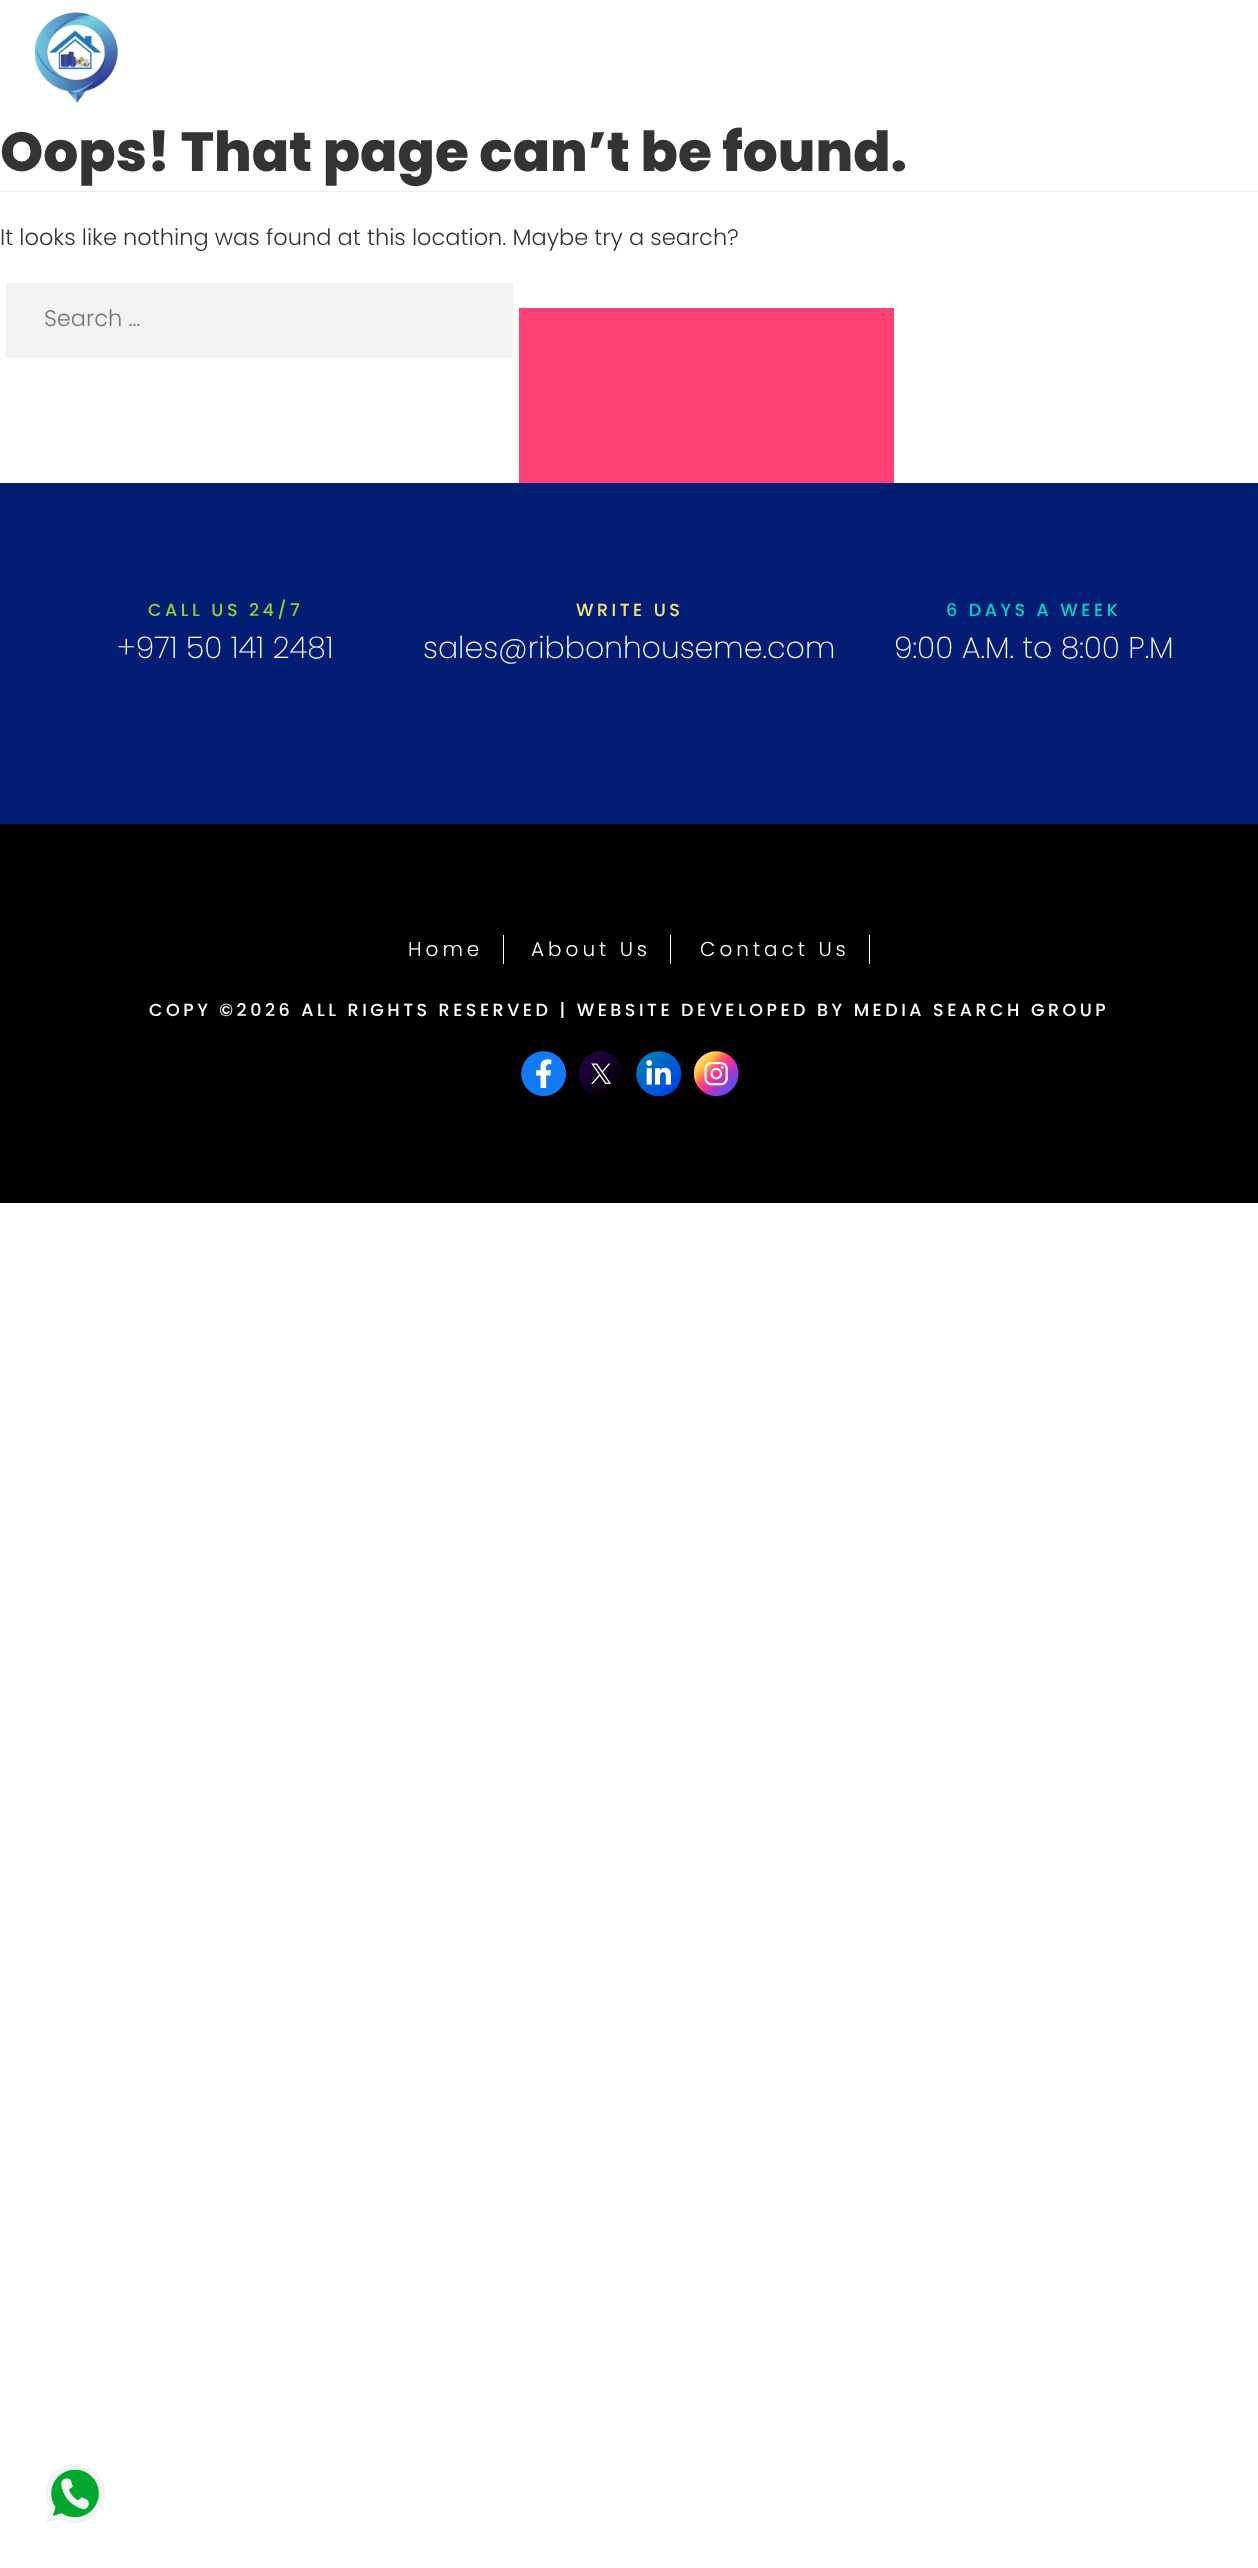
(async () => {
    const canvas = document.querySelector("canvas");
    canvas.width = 1258;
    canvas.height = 2568;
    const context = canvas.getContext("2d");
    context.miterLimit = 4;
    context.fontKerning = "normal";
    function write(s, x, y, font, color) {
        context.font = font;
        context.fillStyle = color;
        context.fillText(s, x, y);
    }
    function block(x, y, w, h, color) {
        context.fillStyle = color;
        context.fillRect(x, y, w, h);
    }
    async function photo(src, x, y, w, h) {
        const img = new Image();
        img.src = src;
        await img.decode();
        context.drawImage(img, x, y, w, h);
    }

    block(0, 0, 1258, 2568, "rgb(255, 255, 255)");
    await photo("media/1.png", 34, 12, 84, 91);
    block(0, 191, 1258, 1, "rgb(238, 238, 238)");
    write("Oops! That page can’t be found.", 0, 171, "800 55px Poppins", "rgb(51, 51, 51)");
    write("It looks like nothing was found at this location. Maybe try a search?", 0, 245, "300 22.5px Poppins", "rgb(51, 51, 51)");
    block(6, 283, 507, 75, "rgb(242, 242, 242)");
    write("Search …", 44, 326, "300 22.5px Poppins", "rgb(117, 117, 117)");
    block(519, 308, 375, 175, "rgb(255, 64, 115)");
    block(0, 483, 1258, 341, "rgb(2, 29, 115)");
    context.letterSpacing = "3.5px";
    write("CALL US 24/7", 148, 616, "500 17.5px Poppins", "rgb(135, 214, 54)");
    context.letterSpacing = "0px";
    write("+971 50 141 2481", 117, 658, "200 30px Poppins", "rgb(255, 255, 255)");
    context.letterSpacing = "3.5px";
    write("WRITE US", 576, 616, "500 17.5px Poppins", "rgb(251, 228, 119)");
    context.letterSpacing = "0px";
    write("sales@ribbonhouseme.com", 423, 658, "200 30px Poppins", "rgb(255, 255, 255)");
    context.letterSpacing = "3.5px";
    write("6 DAYS A WEEK", 946, 616, "500 17.5px Poppins", "rgb(0, 212, 201)");
    context.letterSpacing = "0px";
    write("9:00 A.M. to 8:00 P.M", 894, 658, "200 30px Poppins", "rgb(255, 255, 255)");
    block(0, 824, 1258, 379, "rgb(0, 0, 0)");
    context.letterSpacing = "4px";
    write("Home", 408, 956, "300 20px Poppins", "rgb(255, 255, 255)");
    block(503, 935, 1, 29, "rgb(255, 255, 255)");
    write("About Us", 531, 956, "300 20px Poppins", "rgb(255, 255, 255)");
    block(670, 935, 1, 29, "rgb(255, 255, 255)");
    write("Contact Us", 700, 956, "300 20px Poppins", "rgb(255, 255, 255)");
    block(869, 935, 1, 29, "rgb(255, 255, 255)");
    context.letterSpacing = "3.5px";
    write("COPY ©2026 ALL RIGHTS RESERVED | WEBSITE DEVELOPED BY MEDIA SEARCH GROUP", 149, 1016, "500 17.5px Poppins", "rgb(255, 255, 255)");
    await photo("media/2.png", 521, 1051, 45, 45);
    await photo("media/3.png", 579, 1051, 45, 45);
    await photo("media/4.png", 636, 1051, 45, 45);
    await photo("media/5.png", 694, 1051, 45, 45);
    await photo("media/6.png", 45, 2464, 60, 60);
})();
